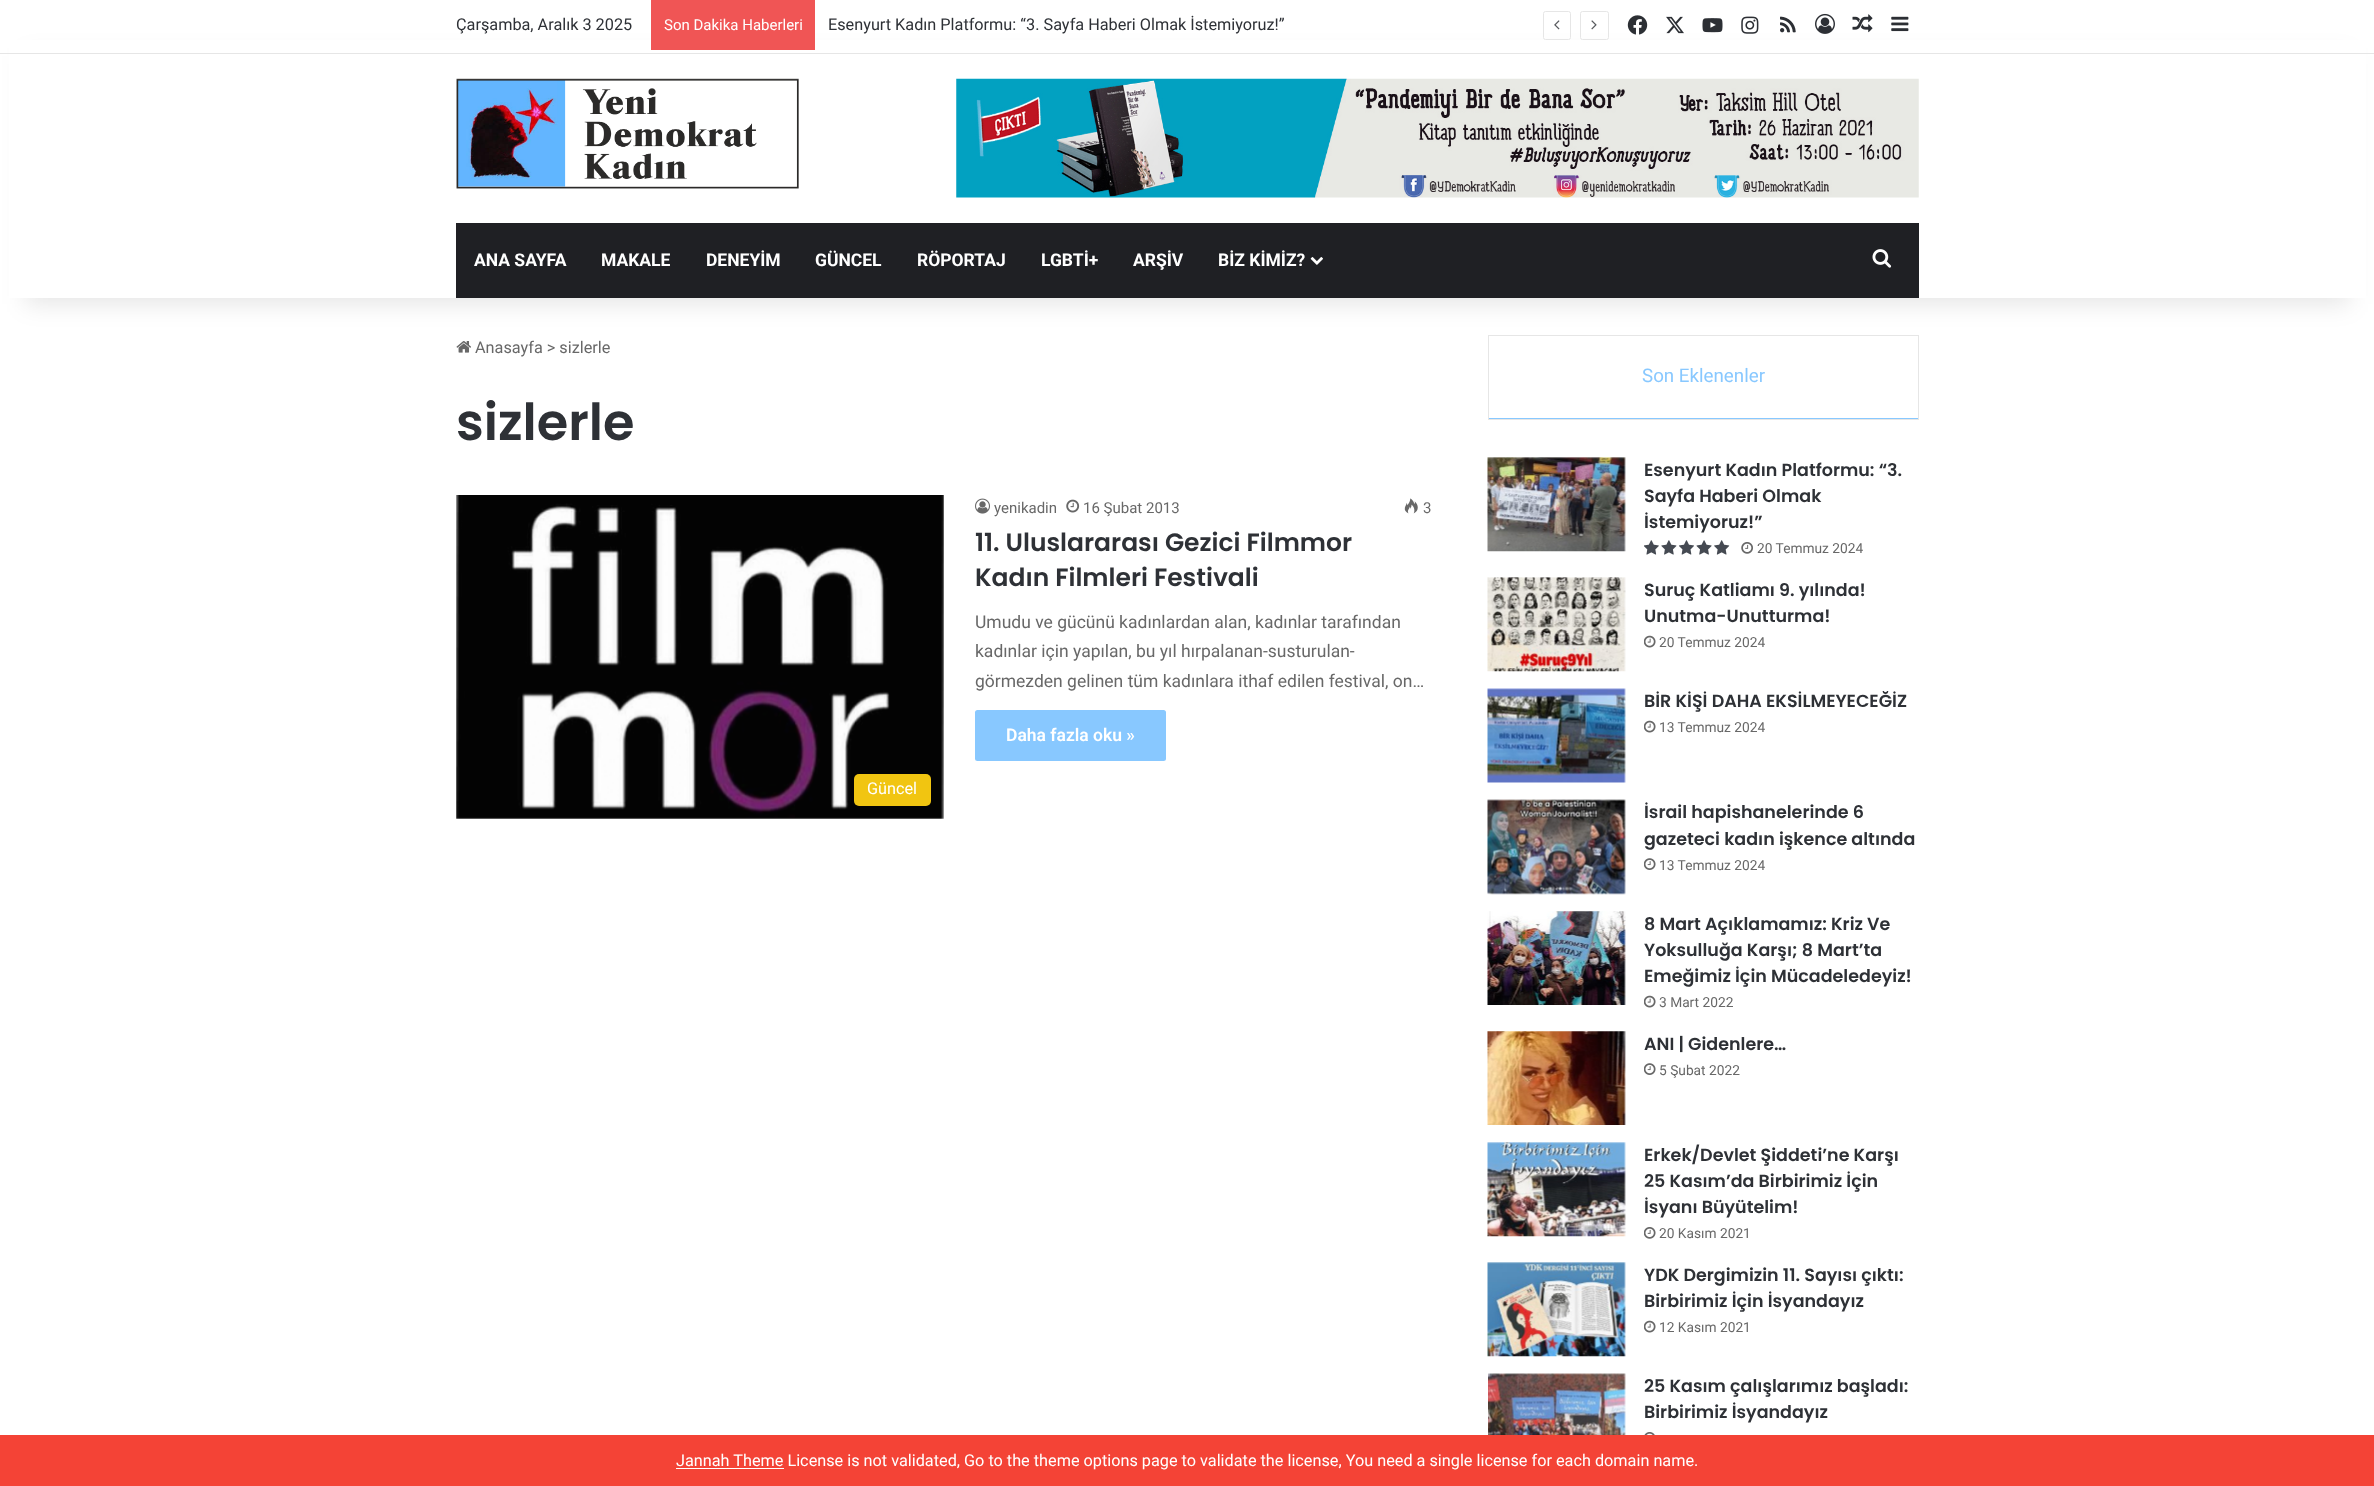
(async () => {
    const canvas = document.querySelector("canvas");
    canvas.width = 2374;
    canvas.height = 1486;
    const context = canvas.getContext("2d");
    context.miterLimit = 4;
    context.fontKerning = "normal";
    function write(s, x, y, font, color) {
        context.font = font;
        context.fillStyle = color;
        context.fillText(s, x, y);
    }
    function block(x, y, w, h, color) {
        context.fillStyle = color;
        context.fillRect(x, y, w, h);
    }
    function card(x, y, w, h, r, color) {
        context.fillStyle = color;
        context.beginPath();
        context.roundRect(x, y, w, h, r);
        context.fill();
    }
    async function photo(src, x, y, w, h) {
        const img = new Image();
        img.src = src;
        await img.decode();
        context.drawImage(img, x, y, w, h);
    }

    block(0, 0, 2374, 1486, "rgb(255, 255, 255)");
    await photo("media/15.png", 456, 341, 15, 12);
    context.strokeStyle = "rgb(230, 230, 230)";
    context.strokeRect(1488.5, 335.5, 430, 84);
    context.fillStyle = "rgba(0, 0, 0, 0.1)";
    context.filter = "blur(12.5px)";
    context.beginPath();
    context.rect(25, 56, 2325, 248);
    context.fill();
    context.filter = "none";
    block(9, 40, 2357, 258, "rgb(255, 255, 255)");
    block(0, 53, 2374, 1, "rgb(230, 230, 230)");
    write("Çarşamba, Aralık 3 2025", 456, 30, "16.25px Roboto", "rgb(46, 49, 54)");
    block(651, 0, 164, 50, "rgb(240, 85, 85)");
    write("Son Dakika Haberleri", 664, 30, "15px Roboto", "rgb(255, 255, 255)");
    write("Esenyurt Kadın Platformu: “3. Sayfa Haberi Olmak İstemiyoruz!”", 828, 30, "16.25px Roboto", "rgb(46, 49, 54)");
    context.beginPath();
    context.roundRect(1543.5, 11.5, 27, 28, 2);
    context.stroke();
    await photo("media/1.png", 1554, 20, 6, 10);
    context.beginPath();
    context.roundRect(1580.5, 11.5, 28, 28, 2);
    context.stroke();
    await photo("media/2.png", 1591, 20, 6, 10);
    await photo("media/3.png", 1627, 15, 21, 20);
    await photo("media/4.png", 1666, 16, 18, 18);
    await photo("media/5.png", 1702, 18, 21, 15);
    await photo("media/6.png", 1741, 16, 18, 18);
    await photo("media/7.png", 1780, 16, 16, 17);
    await photo("media/8.png", 1815, 13, 20, 21);
    await photo("media/9.png", 1852, 14, 21, 19);
    await photo("media/10.png", 1891, 16, 18, 16);
    await photo("media/11.png", 456, 78, 343, 111);
    await photo("media/12.png", 956, 78, 963, 120);
    block(456, 223, 1463, 75, "rgb(31, 32, 36)");
    write("ANA SAYFA", 474, 266, "bold 17.5px Roboto", "rgb(255, 255, 255)");
    write("MAKALE", 601, 266, "bold 17.5px Roboto", "rgb(255, 255, 255)");
    write("DENEYİM", 706, 266, "bold 17.5px Roboto", "rgb(255, 255, 255)");
    write("GÜNCEL", 815, 266, "bold 17.5px Roboto", "rgb(255, 255, 255)");
    write("RÖPORTAJ", 917, 266, "bold 17.5px Roboto", "rgb(255, 255, 255)");
    write("LGBTİ+", 1041, 266, "bold 17.5px Roboto", "rgb(255, 255, 255)");
    write("ARŞİV", 1133, 266, "bold 17.5px Roboto", "rgb(255, 255, 255)");
    write("BİZ KİMİZ?", 1218, 266, "bold 17.5px Roboto", "rgb(255, 255, 255)");
    await photo("media/13.png", 1310, 257, 13, 8);
    await photo("media/14.png", 1872, 249, 20, 19);
    write("Anasayfa > sizlerle", 475, 353, "16.25px Roboto", "rgb(104, 104, 104)");
    write("sizlerle", 456, 440, "600 51px Poppins", "rgb(46, 49, 54)");
    await photo("media/16.png", 975, 498, 15, 16);
    write("yenikadin", 994, 513, "15px Roboto", "rgb(104, 104, 104)");
    await photo("media/17.png", 1066, 499, 14, 14);
    write("16 Şubat 2013", 1083, 513, "15px Roboto", "rgb(104, 104, 104)");
    await photo("media/18.png", 1404, 498, 14, 16);
    write("3", 1423, 513, "15px Roboto", "rgb(104, 104, 104)");
    write("11. Uluslararası Gezici Filmmor", 975, 551, "600 25px Poppins", "rgb(46, 49, 54)");
    write("Kadın Filmleri Festivali", 975, 586, "600 25px Poppins", "rgb(46, 49, 54)");
    write("Umudu ve gücünü kadınlardan alan, kadınlar tarafından", 975, 628, "17.5px Roboto", "rgb(104, 104, 104)");
    write("kadınlar için yapılan, bu yıl hırpalanan-susturulan-", 975, 657, "17.5px Roboto", "rgb(104, 104, 104)");
    write("görmezden gelinen tüm kadınlara ithaf edilen festival, on…", 975, 687, "17.5px Roboto", "rgb(104, 104, 104)");
    card(975, 710, 191, 51, 2.5, "rgb(136, 200, 255)");
    write("Daha fazla oku »", 1006, 741, "600 17.5px Roboto", "rgb(255, 255, 255)");
    await photo("media/19.png", 456, 495, 488, 324);
    card(854, 774, 77, 32, 5, "rgb(241, 197, 17)");
    write("Güncel", 867, 794, "16.25px Roboto", "rgb(255, 255, 255)");
    block(1489, 418, 429, 1, "rgb(136, 200, 255)");
    write("Son Eklenenler", 1642, 382, "18.75px Roboto", "rgb(136, 200, 255)");
    await photo("media/20.png", 1487, 457, 139, 95);
    write("Esenyurt Kadın Platformu: “3.", 1644, 476, "600 17.5px Poppins", "rgb(46, 49, 54)");
    write("Sayfa Haberi Olmak", 1644, 502, "600 17.5px Poppins", "rgb(46, 49, 54)");
    write("İstemiyoruz!”", 1644, 528, "600 17.5px Poppins", "rgb(46, 49, 54)");
    await photo("media/21.png", 1644, 540, 86, 15);
    await photo("media/22.png", 1741, 542, 12, 12);
    write("20 Temmuz 2024", 1757, 553, "13.75px Roboto", "rgb(104, 104, 104)");
    await photo("media/23.png", 1487, 577, 139, 95);
    write("Suruç Katliamı 9. yılında!", 1644, 596, "600 17.5px Poppins", "rgb(46, 49, 54)");
    write("Unutma-Unutturma!", 1644, 622, "600 17.5px Poppins", "rgb(46, 49, 54)");
    await photo("media/24.png", 1644, 635, 12, 13);
    write("20 Temmuz 2024", 1659, 647, "13.75px Roboto", "rgb(104, 104, 104)");
    await photo("media/25.png", 1487, 688, 139, 95);
    write("BİR KİŞİ DAHA EKSİLMEYECEĞİZ", 1644, 707, "600 17.5px Poppins", "rgb(46, 49, 54)");
    await photo("media/24.png", 1644, 720, 12, 13);
    write("13 Temmuz 2024", 1659, 732, "13.75px Roboto", "rgb(104, 104, 104)");
    await photo("media/26.png", 1487, 799, 139, 96);
    write("İsrail hapishanelerinde 6", 1644, 818, "600 17.5px Poppins", "rgb(46, 49, 54)");
    write("gazeteci kadın işkence altında", 1644, 845, "600 17.5px Poppins", "rgb(46, 49, 54)");
    await photo("media/27.png", 1644, 858, 12, 12);
    write("13 Temmuz 2024", 1659, 870, "13.75px Roboto", "rgb(104, 104, 104)");
    await photo("media/28.png", 1487, 911, 139, 94);
    write("8 Mart Açıklamamız: Kriz Ve", 1644, 930, "600 17.5px Poppins", "rgb(46, 49, 54)");
    write("Yoksulluğa Karşı; 8 Mart’ta", 1644, 956, "600 17.5px Poppins", "rgb(46, 49, 54)");
    write("Emeğimiz İçin Mücadeledeyiz!", 1644, 982, "600 17.5px Poppins", "rgb(46, 49, 54)");
    await photo("media/24.png", 1644, 995, 12, 13);
    write("3 Mart 2022", 1659, 1007, "13.75px Roboto", "rgb(104, 104, 104)");
    await photo("media/29.png", 1487, 1031, 139, 94);
    write("ANI | Gidenlere…", 1644, 1050, "600 17.5px Poppins", "rgb(46, 49, 54)");
    await photo("media/27.png", 1644, 1063, 12, 12);
    write("5 Şubat 2022", 1659, 1075, "13.75px Roboto", "rgb(104, 104, 104)");
    await photo("media/30.png", 1487, 1142, 139, 95);
    write("Erkek/Devlet Şiddeti’ne Karşı", 1644, 1161, "600 17.5px Poppins", "rgb(46, 49, 54)");
    write("25 Kasım’da Birbirimiz İçin", 1644, 1187, "600 17.5px Poppins", "rgb(46, 49, 54)");
    write("İsyanı Büyütelim!", 1644, 1213, "600 17.5px Poppins", "rgb(46, 49, 54)");
    await photo("media/31.png", 1644, 1227, 12, 12);
    write("20 Kasım 2021", 1659, 1238, "13.75px Roboto", "rgb(104, 104, 104)");
    await photo("media/32.png", 1487, 1262, 139, 95);
    write("YDK Dergimizin 11. Sayısı çıktı:", 1644, 1281, "600 17.5px Poppins", "rgb(46, 49, 54)");
    write("Birbirimiz İçin İsyandayız", 1644, 1307, "600 17.5px Poppins", "rgb(46, 49, 54)");
    await photo("media/24.png", 1644, 1320, 12, 13);
    write("12 Kasım 2021", 1659, 1332, "13.75px Roboto", "rgb(104, 104, 104)");
    await photo("media/33.png", 1488, 1373, 138, 62);
    write("25 Kasım çalışlarımız başladı:", 1644, 1392, "600 17.5px Poppins", "rgb(46, 49, 54)");
    write("Birbirimiz İsyandayız", 1644, 1418, "600 17.5px Poppins", "rgb(46, 49, 54)");
    await photo("media/34.png", 1644, 1432, 11, 3);
    block(0, 1435, 2374, 51, "rgb(244, 67, 54)");
    block(676, 1468, 108, 1, "rgb(255, 255, 255)");
    write("Jannah Theme License is not validated, Go to the theme options page to validate the license, You need a single license for each domain name.", 676, 1466, "16.25px Roboto", "rgb(255, 255, 255)");
})();
